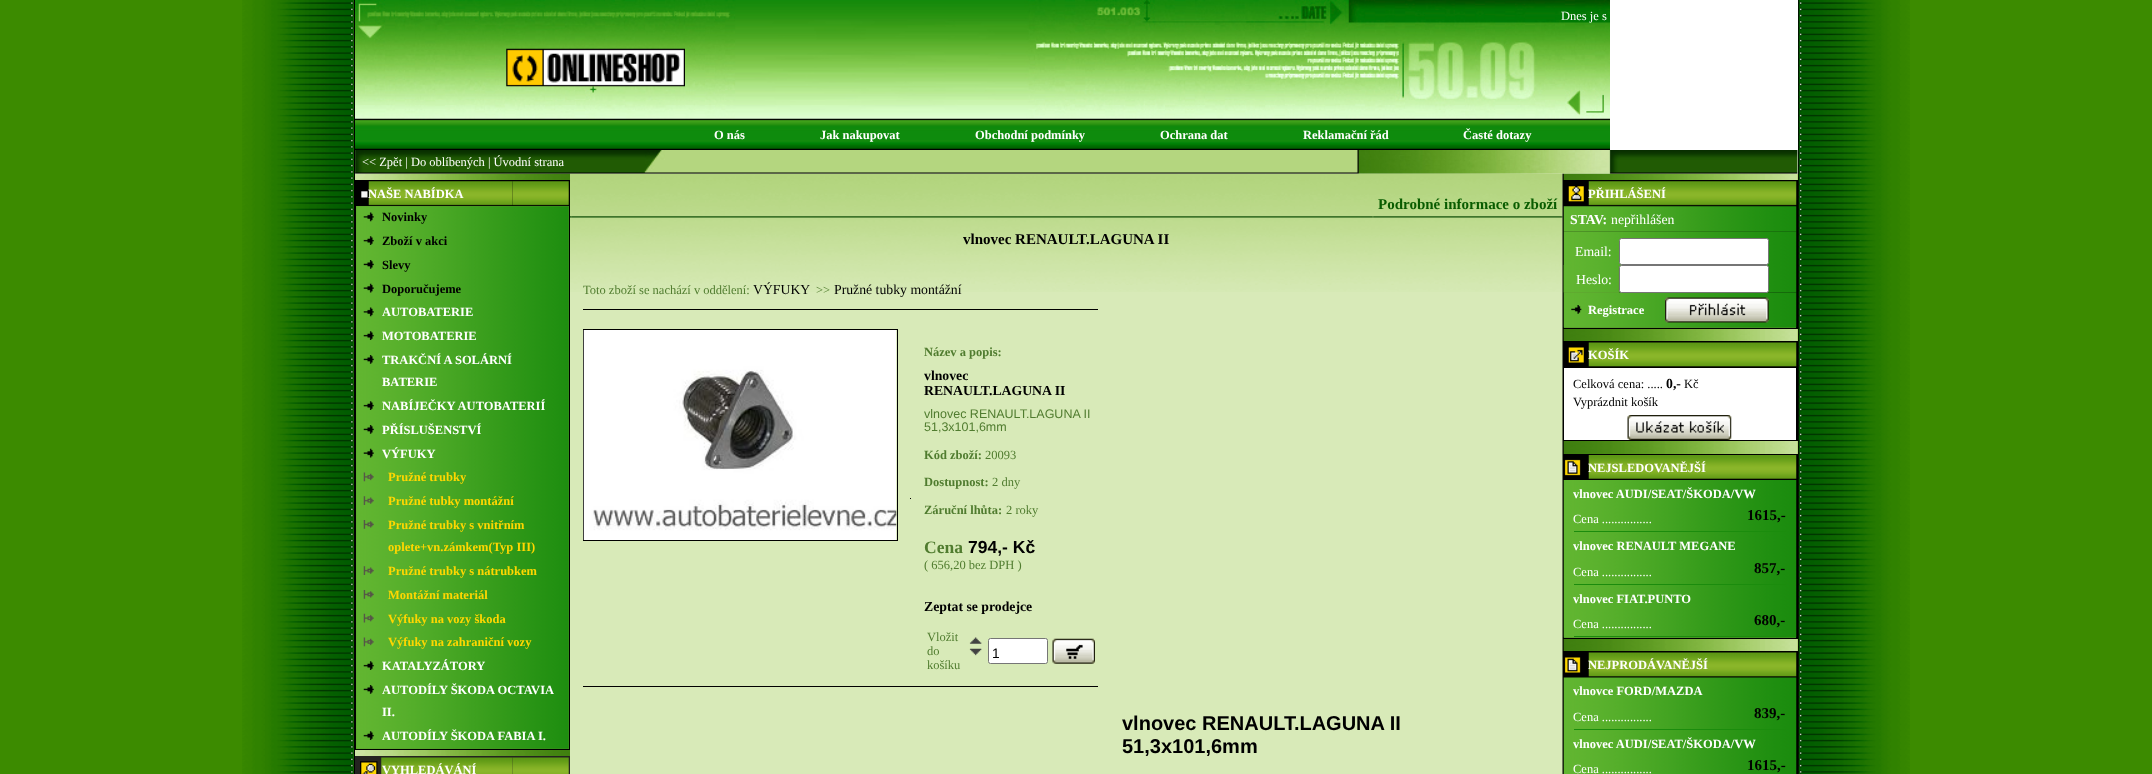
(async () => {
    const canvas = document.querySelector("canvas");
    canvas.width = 2152;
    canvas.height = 774;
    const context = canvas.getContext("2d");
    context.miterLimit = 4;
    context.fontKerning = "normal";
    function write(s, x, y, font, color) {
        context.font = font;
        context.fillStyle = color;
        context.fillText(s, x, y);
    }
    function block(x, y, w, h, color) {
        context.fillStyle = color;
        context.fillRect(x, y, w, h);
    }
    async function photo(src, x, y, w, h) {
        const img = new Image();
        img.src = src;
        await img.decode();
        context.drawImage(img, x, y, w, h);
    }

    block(0, 0, 2152, 774, "rgb(255, 255, 255)");
    await photo("media/3.png", 355, 0, 1255, 150);
    write("Dnes je s", 1561, 20, "12.5px Liberation Serif", "rgb(255, 255, 255)");
    await photo("media/1.png", 506, 48, 179, 39);
    write("O nás", 714, 139, "bold 12.5px Liberation Serif", "rgb(255, 255, 255)");
    write("Jak nakupovat", 820, 139, "bold 12.5px Liberation Serif", "rgb(255, 255, 255)");
    write("Obchodní podmínky", 975, 139, "bold 12.5px Liberation Serif", "rgb(255, 255, 255)");
    write("Ochrana dat", 1160, 139, "bold 12.5px Liberation Serif", "rgb(255, 255, 255)");
    write("Reklamační řád", 1303, 139, "bold 12.5px Liberation Serif", "rgb(255, 255, 255)");
    write("Časté dotazy", 1463, 139, "bold 12.5px Liberation Serif", "rgb(255, 255, 255)");
    block(0, 0, 354, 774, "rgb(60, 139, 0)");
    await photo("media/2.png", 242, 0, 112, 774);
    block(354, 0, 1, 774, "rgb(0, 0, 0)");
    await photo("media/4.png", 355, 150, 1443, 24);
    write("<< Zpět | Do oblíbených | Úvodní strana", 362, 166, "12.5px Liberation Serif", "rgb(255, 255, 255)");
    await photo("media/5.png", 355, 173, 215, 583);
    block(355, 180, 215, 570, "rgb(0, 0, 0)");
    await photo("media/7.png", 368, 181, 145, 25);
    await photo("media/6.png", 361, 190, 8, 9);
    write("NAŠE NABÍDKA", 368, 198, "bold 12.5px Liberation Serif", "rgb(255, 255, 255)");
    await photo("media/8.png", 512, 181, 57, 25);
    block(356, 206, 213, 543, "rgb(92, 140, 46)");
    await photo("media/9.png", 356, 206, 213, 543);
    await photo("media/10.png", 363, 212, 11, 10);
    write("Novinky", 382, 221, "bold 12.5px Liberation Serif", "rgb(0, 0, 0)");
    await photo("media/11.png", 363, 236, 11, 9);
    write("Zboží v akci", 382, 245, "bold 12.5px Liberation Serif", "rgb(0, 0, 0)");
    await photo("media/12.png", 363, 260, 11, 9);
    write("Slevy", 382, 269, "bold 12.5px Liberation Serif", "rgb(0, 0, 0)");
    await photo("media/13.png", 363, 283, 11, 10);
    write("Doporučujeme", 382, 293, "bold 12.5px Liberation Serif", "rgb(0, 0, 0)");
    await photo("media/14.png", 363, 307, 11, 10);
    write("AUTOBATERIE", 382, 316, "bold 12.5px Liberation Serif", "rgb(255, 255, 255)");
    await photo("media/15.png", 363, 331, 11, 9);
    write("MOTOBATERIE", 382, 340, "bold 12.5px Liberation Serif", "rgb(255, 255, 255)");
    await photo("media/16.png", 363, 355, 11, 9);
    write("TRAKČNÍ A SOLÁRNÍ", 382, 364, "bold 12.5px Liberation Serif", "rgb(255, 255, 255)");
    write("BATERIE", 382, 386, "bold 12.5px Liberation Serif", "rgb(255, 255, 255)");
    await photo("media/17.png", 363, 401, 11, 9);
    write("NABÍJEČKY AUTOBATERIÍ", 382, 410, "bold 12.5px Liberation Serif", "rgb(255, 255, 255)");
    await photo("media/18.png", 363, 425, 11, 9);
    write("PŘÍSLUŠENSTVÍ", 382, 434, "bold 12.5px Liberation Serif", "rgb(255, 255, 255)");
    await photo("media/19.png", 363, 448, 11, 10);
    write("VÝFUKY", 382, 458, "bold 12.5px Liberation Serif", "rgb(255, 255, 255)");
    await photo("media/20.png", 363, 472, 11, 10);
    write("Pružné trubky", 388, 481, "bold 12.5px Liberation Serif", "rgb(255, 215, 0)");
    await photo("media/21.png", 363, 496, 11, 9);
    write("Pružné tubky montážní", 388, 505, "bold 12.5px Liberation Serif", "rgb(255, 215, 0)");
    await photo("media/22.png", 363, 520, 11, 9);
    write("Pružné trubky s vnitřním", 388, 529, "bold 12.5px Liberation Serif", "rgb(255, 215, 0)");
    write("oplete+vn.zámkem(Typ III)", 388, 551, "bold 12.5px Liberation Serif", "rgb(255, 215, 0)");
    await photo("media/23.png", 363, 566, 11, 9);
    write("Pružné trubky s nátrubkem", 388, 575, "bold 12.5px Liberation Serif", "rgb(255, 215, 0)");
    await photo("media/24.png", 363, 590, 11, 9);
    write("Montážní materiál", 388, 599, "bold 12.5px Liberation Serif", "rgb(255, 215, 0)");
    await photo("media/25.png", 363, 613, 11, 10);
    write("Výfuky na vozy škoda", 388, 623, "bold 12.5px Liberation Serif", "rgb(255, 215, 0)");
    await photo("media/26.png", 363, 637, 11, 10);
    write("Výfuky na zahraniční vozy", 388, 646, "bold 12.5px Liberation Serif", "rgb(255, 215, 0)");
    await photo("media/27.png", 363, 661, 11, 9);
    write("KATALYZÁTORY", 382, 670, "bold 12.5px Liberation Serif", "rgb(255, 255, 255)");
    await photo("media/28.png", 363, 685, 11, 9);
    write("AUTODÍLY ŠKODA OCTAVIA", 382, 694, "bold 12.5px Liberation Serif", "rgb(255, 255, 255)");
    write("II.", 382, 716, "bold 12.5px Liberation Serif", "rgb(255, 255, 255)");
    await photo("media/29.png", 363, 731, 11, 9);
    write("AUTODÍLY ŠKODA FABIA I.", 382, 740, "bold 12.5px Liberation Serif", "rgb(255, 255, 255)");
    block(355, 756, 215, 18, "rgb(36, 35, 32)");
    await photo("media/30.png", 360, 761, 18, 13);
    await photo("media/31.png", 381, 757, 132, 17);
    write("VYHLEDÁVÁNÍ", 382, 774, "bold 12.5px Liberation Serif", "rgb(255, 255, 255)");
    await photo("media/32.png", 512, 757, 57, 17);
    block(570, 174, 993, 600, "rgb(216, 234, 184)");
    await photo("media/33.png", 570, 173, 993, 119);
    await photo("media/35.png", 570, 216, 2, 2);
    await photo("media/36.png", 571, 216, 802, 2);
    await photo("media/37.png", 1372, 216, 2, 2);
    await photo("media/34.png", 1373, 216, 189, 2);
    write("Podrobné informace o zboží", 1378, 209, "bold 15px Liberation Serif", "rgb(9, 92, 0)");
    await photo("media/38.png", 1561, 216, 2, 2);
    write("vlnovec RENAULT.LAGUNA II", 963, 244, "bold 15px Liberation Serif", "rgb(0, 0, 0)");
    write("Toto zboží se nachází v oddělení:", 583, 294, "12.5px Liberation Serif", "rgb(80, 124, 47)");
    write("VÝFUKY", 753, 294, "13.75px Liberation Serif", "rgb(0, 0, 0)");
    write(">>", 816, 294, "12.5px Liberation Serif", "rgb(80, 124, 47)");
    write("Pružné tubky montážní", 834, 294, "13.75px Liberation Serif", "rgb(0, 0, 0)");
    block(583, 309, 515, 1, "rgb(0, 0, 0)");
    context.strokeStyle = "rgb(0, 0, 0)";
    context.strokeRect(583.5, 329.5, 314, 211);
    await photo("media/39.png", 583, 330, 314, 210);
    block(910, 498, 1, 1, "rgb(0, 0, 0)");
    write("Název a popis:", 924, 356, "bold 12.5px Liberation Serif", "rgb(80, 124, 47)");
    write("vlnovec", 924, 380, "bold 13.75px Liberation Serif", "rgb(0, 0, 0)");
    write("RENAULT.LAGUNA II", 924, 395, "bold 13.75px Liberation Serif", "rgb(0, 0, 0)");
    write("vlnovec RENAULT.LAGUNA II", 924, 418, "12.5px Liberation Sans", "rgb(80, 124, 47)");
    write("51,3x101,6mm", 924, 431, "12.5px Liberation Sans", "rgb(80, 124, 47)");
    write("Kód zboží:", 924, 459, "bold 12.5px Liberation Serif", "rgb(80, 124, 47)");
    write("20093", 985, 459, "12.5px Liberation Serif", "rgb(80, 124, 47)");
    write("Dostupnost:", 924, 486, "bold 12.5px Liberation Serif", "rgb(80, 124, 47)");
    write("2 dny", 992, 486, "12.5px Liberation Serif", "rgb(80, 124, 47)");
    write("Záruční lhůta:", 924, 514, "bold 12.5px Liberation Serif", "rgb(80, 124, 47)");
    write("2 roky", 1006, 514, "12.5px Liberation Serif", "rgb(80, 124, 47)");
    write("Cena", 924, 553, "bold 17.5px Liberation Serif", "rgb(80, 124, 47)");
    write("794,- Kč", 968, 553, "bold 17.5px Liberation Sans", "rgb(0, 0, 0)");
    write("( 656,20 bez DPH )", 924, 569, "12.5px Liberation Serif", "rgb(80, 124, 47)");
    write("Zeptat se prodejce", 924, 611, "bold 13.75px Liberation Serif", "rgb(0, 0, 0)");
    write("Vložit", 927, 641, "12.5px Liberation Serif", "rgb(80, 124, 47)");
    write("do", 927, 655, "12.5px Liberation Serif", "rgb(80, 124, 47)");
    write("košíku", 927, 669, "12.5px Liberation Serif", "rgb(80, 124, 47)");
    await photo("media/40.png", 969, 637, 13, 7);
    await photo("media/41.png", 969, 648, 13, 8);
    context.fillStyle = "rgb(255, 255, 255)";
    context.beginPath();
    context.roundRect(988.5, 638.5, 59, 25, 2);
    context.fill();
    context.strokeStyle = "rgb(118, 118, 118)";
    context.stroke();
    write("1", 992, 658, "13.75px Liberation Sans", "rgb(0, 0, 0)");
    await photo("media/42.png", 1052, 638, 43, 26);
    block(583, 686, 515, 1, "rgb(0, 0, 0)");
    write("vlnovec RENAULT.LAGUNA II", 1122, 730, "bold 20px Liberation Sans", "rgb(0, 0, 0)");
    write("51,3x101,6mm", 1122, 753, "bold 20px Liberation Sans", "rgb(0, 0, 0)");
    block(1797, 174, 1, 477, "rgb(161, 199, 92)");
    await photo("media/43.png", 1562, 173, 236, 601);
    block(1563, 180, 235, 149, "rgb(0, 0, 0)");
    await photo("media/44.png", 1568, 186, 16, 16);
    await photo("media/45.png", 1588, 181, 152, 25);
    write("PŘIHLÁŠENÍ", 1588, 198, "bold 12.5px Liberation Serif", "rgb(255, 255, 255)");
    await photo("media/46.png", 1740, 181, 57, 25);
    await photo("media/47.png", 1563, 206, 234, 26);
    write("STAV:", 1570, 224, "bold 13.75px Liberation Serif", "rgb(255, 255, 255)");
    write("nepřihlášen", 1611, 224, "13.75px Liberation Serif", "rgb(255, 255, 255)");
    await photo("media/48.png", 1563, 231, 234, 62);
    write("Email:", 1575, 256, "13.75px Liberation Serif", "rgb(255, 255, 255)");
    context.beginPath();
    context.roundRect(1619.5, 238.5, 149, 26, 2);
    context.fill();
    context.stroke();
    block(1564, 265, 55, 28, "rgb(92, 140, 46)");
    await photo("media/49.png", 1563, 265, 56, 28);
    write("Heslo:", 1576, 284, "13.75px Liberation Serif", "rgb(255, 255, 255)");
    block(1564, 327, 232, 1, "rgb(92, 140, 46)");
    await photo("media/50.png", 1563, 292, 234, 36);
    context.fillStyle = "rgb(255, 255, 255)";
    context.beginPath();
    context.roundRect(1619.5, 265.5, 149, 27, 2);
    context.fill();
    context.stroke();
    await photo("media/51.png", 1571, 305, 11, 9);
    write("Registrace", 1588, 314, "bold 12.5px Liberation Serif", "rgb(255, 255, 255)");
    await photo("media/52.png", 1665, 297, 104, 26);
    block(1563, 341, 235, 100, "rgb(0, 0, 0)");
    await photo("media/53.png", 1568, 347, 16, 16);
    await photo("media/54.png", 1588, 342, 152, 25);
    write("KOŠÍK", 1588, 359, "bold 12.5px Liberation Serif", "rgb(255, 255, 255)");
    await photo("media/55.png", 1740, 342, 57, 25);
    block(1564, 368, 232, 72, "rgb(255, 255, 255)");
    write("Celková cena: .....", 1573, 388, "12.5px Liberation Serif", "rgb(0, 0, 0)");
    write("0,-", 1666, 388, "bold 13.75px Liberation Serif", "rgb(0, 0, 0)");
    write("Kč", 1684, 388, "12.5px Liberation Serif", "rgb(0, 0, 0)");
    write("Vyprázdnit košík", 1573, 406, "12.5px Liberation Serif", "rgb(0, 0, 0)");
    await photo("media/56.png", 1627, 415, 105, 25);
    block(1563, 454, 235, 185, "rgb(0, 0, 0)");
    await photo("media/57.png", 1564, 459, 17, 17);
    await photo("media/58.png", 1588, 455, 152, 24);
    write("NEJSLEDOVANĚJŠÍ", 1588, 472, "bold 12.5px Liberation Serif", "rgb(255, 255, 255)");
    await photo("media/59.png", 1740, 455, 57, 24);
    block(1564, 637, 232, 1, "rgb(92, 140, 46)");
    await photo("media/60.png", 1563, 480, 234, 158);
    write("vlnovec AUDI/SEAT/ŠKODA/VW", 1573, 498, "bold 12.5px Liberation Serif", "rgb(255, 255, 255)");
    write("Cena ................", 1573, 523, "12.5px Liberation Serif", "rgb(255, 255, 255)");
    write("1615,-", 1747, 520, "bold 15px Liberation Serif", "rgb(0, 0, 0)");
    block(1574, 531, 212, 1, "rgb(27, 140, 13)");
    write("vlnovec RENAULT MEGANE", 1573, 550, "bold 12.5px Liberation Serif", "rgb(255, 255, 255)");
    write("Cena ................", 1573, 576, "12.5px Liberation Serif", "rgb(255, 255, 255)");
    write("857,-", 1754, 573, "bold 15px Liberation Serif", "rgb(0, 0, 0)");
    block(1574, 584, 212, 1, "rgb(27, 140, 13)");
    write("vlnovec FIAT.PUNTO", 1573, 603, "bold 12.5px Liberation Serif", "rgb(255, 255, 255)");
    write("Cena ................", 1573, 628, "12.5px Liberation Serif", "rgb(255, 255, 255)");
    write("680,-", 1754, 625, "bold 15px Liberation Serif", "rgb(0, 0, 0)");
    block(1574, 636, 212, 1, "rgb(27, 140, 13)");
    block(1563, 651, 235, 123, "rgb(0, 0, 0)");
    await photo("media/61.png", 1564, 657, 17, 16);
    await photo("media/62.png", 1588, 652, 152, 25);
    write("NEJPRODÁVANĚJŠÍ", 1588, 669, "bold 12.5px Liberation Serif", "rgb(255, 255, 255)");
    await photo("media/63.png", 1740, 652, 57, 25);
    await photo("media/64.png", 1563, 677, 234, 97);
    write("vlnovce FORD/MAZDA", 1573, 695, "bold 12.5px Liberation Serif", "rgb(255, 255, 255)");
    write("Cena ................", 1573, 721, "12.5px Liberation Serif", "rgb(255, 255, 255)");
    write("839,-", 1754, 718, "bold 15px Liberation Serif", "rgb(0, 0, 0)");
    block(1574, 729, 212, 1, "rgb(27, 140, 13)");
    write("vlnovec AUDI/SEAT/ŠKODA/VW", 1573, 748, "bold 12.5px Liberation Serif", "rgb(255, 255, 255)");
    write("Cena ................", 1573, 773, "12.5px Liberation Serif", "rgb(255, 255, 255)");
    write("1615,-", 1747, 770, "bold 15px Liberation Serif", "rgb(0, 0, 0)");
    block(1798, 0, 1, 774, "rgb(0, 0, 0)");
    block(1910, 0, 242, 774, "rgb(60, 139, 0)");
    await photo("media/65.png", 1798, 0, 112, 774);
})();
